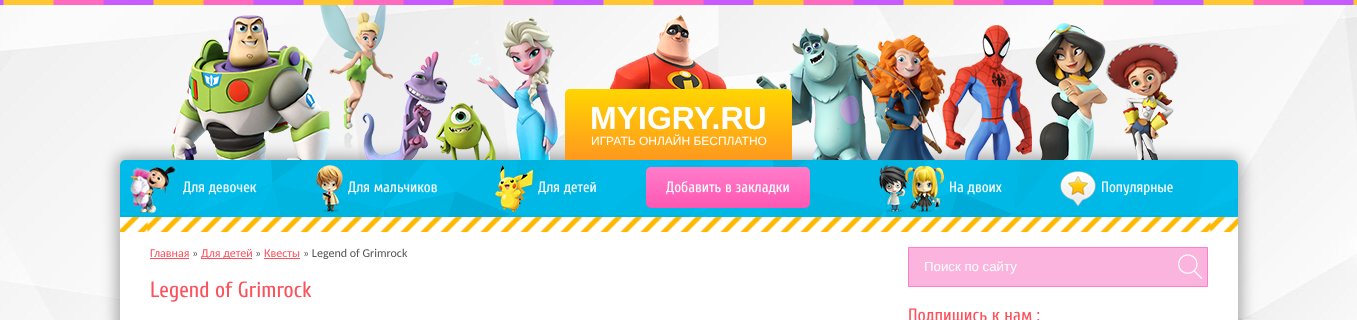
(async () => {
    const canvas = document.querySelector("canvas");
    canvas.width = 1357;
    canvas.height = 320;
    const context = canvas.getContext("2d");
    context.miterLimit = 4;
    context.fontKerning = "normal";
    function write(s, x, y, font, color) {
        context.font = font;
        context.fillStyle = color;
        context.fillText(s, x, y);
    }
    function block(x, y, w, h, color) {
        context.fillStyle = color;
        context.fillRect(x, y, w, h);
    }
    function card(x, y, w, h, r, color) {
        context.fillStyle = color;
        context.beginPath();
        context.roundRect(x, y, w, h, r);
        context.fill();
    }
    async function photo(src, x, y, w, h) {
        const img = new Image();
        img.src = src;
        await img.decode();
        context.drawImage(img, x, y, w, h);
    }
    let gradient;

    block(0, 0, 1357, 320, "rgb(255, 255, 255)");
    await photo("media/1.png", 0, 5, 1357, 315);
    await photo("media/2.png", 0, 0, 1357, 5);
    context.fillStyle = "rgba(50, 50, 50, 0.43)";
    context.filter = "blur(7.5px)";
    context.beginPath();
    context.roundRect(117, 157, 1124, 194, 8);
    context.fill();
    context.filter = "none";
    await photo("media/3.png", 171, 5, 1008, 155);
    gradient = context.createLinearGradient(679, 89, 679, 160);
    gradient.addColorStop(0, "rgb(255, 214, 1)");
    gradient.addColorStop(1, "rgb(255, 152, 30)");
    context.fillStyle = gradient;
    context.beginPath();
    context.roundRect(565, 89, 227, 71, [5, 5, 0, 0]);
    context.fill();
    write("MYIGRY.RU", 590, 129, "bold 32px Liberation Sans", "rgb(255, 255, 255)");
    write("ИГРАТЬ ОНЛАЙН БЕСПЛАТНО", 591, 145, "12px Liberation Sans", "rgb(255, 255, 255)");
    card(120, 160, 1118, 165, 5, "rgb(255, 255, 255)");
    await photo("media/4.png", 120, 160, 1118, 57);
    await photo("media/5.png", 130, 165, 48, 48);
    write("Для девочек", 183, 192, "15px Cuprum", "rgb(255, 255, 255)");
    await photo("media/6.png", 316, 165, 27, 48);
    write("Для мальчиков", 348, 192, "15px Cuprum", "rgb(255, 255, 255)");
    await photo("media/7.png", 495, 165, 38, 47);
    write("Для детей", 538, 192, "15px Cuprum", "rgb(255, 255, 255)");
    gradient = context.createLinearGradient(728, 167, 728, 208);
    gradient.addColorStop(0, "rgb(255, 125, 202)");
    gradient.addColorStop(1, "rgb(255, 87, 178)");
    context.fillStyle = gradient;
    context.beginPath();
    context.roundRect(646, 167, 164, 41, 5);
    context.fill();
    write("Добавить в закладки", 666, 192, "15px Cuprum", "rgb(255, 255, 255)");
    await photo("media/8.png", 879, 165, 65, 47);
    write("На двоих", 949, 192, "15px Cuprum", "rgb(255, 255, 255)");
    await photo("media/9.png", 1060, 171, 36, 35);
    write("Популярные", 1101, 192, "15px Cuprum", "rgb(255, 255, 255)");
    await photo("media/10.png", 120, 217, 1118, 15);
    write("Главная", 150, 257, "12px Carlito", "rgb(253, 81, 91)");
    block(150, 258, 39, 1, "rgb(253, 81, 91)");
    write("»", 192, 257, "12px Carlito", "rgb(85, 85, 85)");
    block(201, 258, 51, 1, "rgb(253, 81, 91)");
    write("Для детей", 201, 257, "12px Carlito", "rgb(253, 81, 91)");
    write("»", 255, 257, "12px Carlito", "rgb(85, 85, 85)");
    write("Квесты", 264, 257, "12px Carlito", "rgb(253, 81, 91)");
    block(264, 258, 36, 1, "rgb(253, 81, 91)");
    write("» Legend of Grimrock", 303, 257, "12px Carlito", "rgb(85, 85, 85)");
    write("Legend of Grimrock", 150, 297, "22px Cuprum", "rgb(253, 81, 91)");
    context.fillStyle = "rgb(251, 180, 222)";
    context.beginPath();
    context.rect(908.5, 247.5, 299, 39);
    context.fill();
    context.strokeStyle = "rgb(255, 125, 202)";
    context.stroke();
    write("Поиск по сайту", 924, 271, "13.25px Liberation Sans", "rgb(255, 255, 255)");
    await photo("media/11.png", 1178, 254, 25, 25);
    write("Подпишись к нам :", 908, 321, "18px Cuprum", "rgb(253, 81, 91)");
})();
